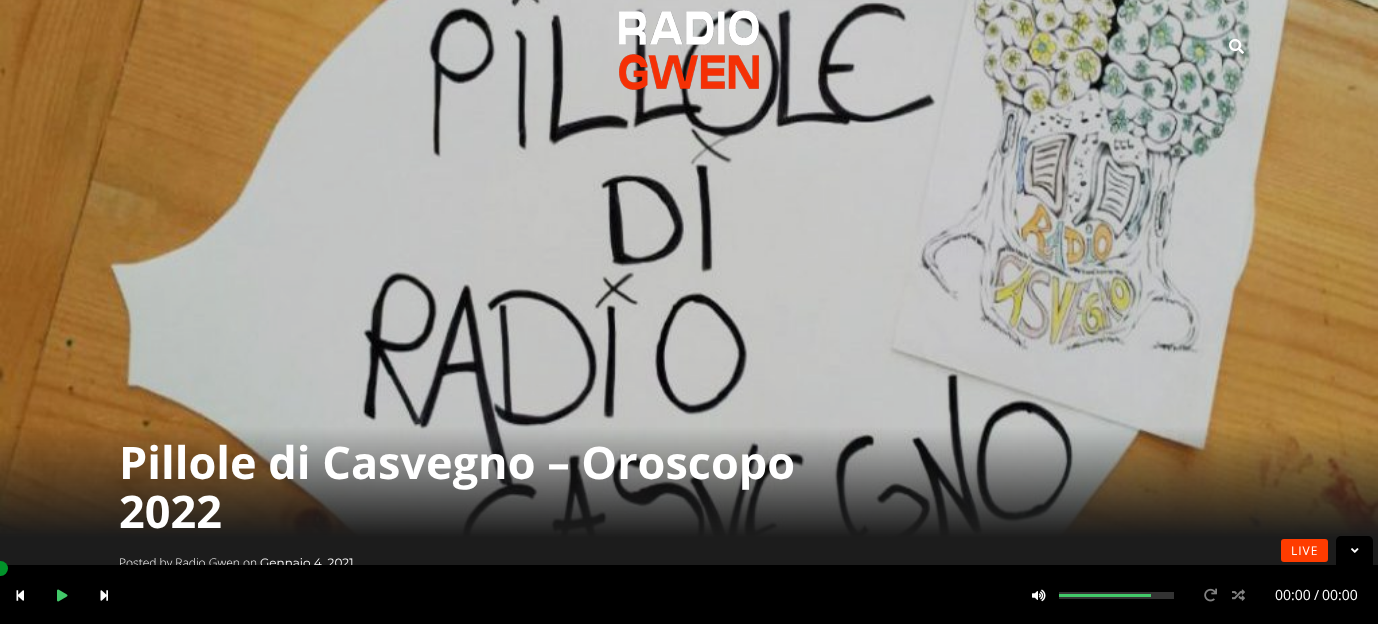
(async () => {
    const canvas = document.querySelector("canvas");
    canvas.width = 1378;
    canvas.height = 624;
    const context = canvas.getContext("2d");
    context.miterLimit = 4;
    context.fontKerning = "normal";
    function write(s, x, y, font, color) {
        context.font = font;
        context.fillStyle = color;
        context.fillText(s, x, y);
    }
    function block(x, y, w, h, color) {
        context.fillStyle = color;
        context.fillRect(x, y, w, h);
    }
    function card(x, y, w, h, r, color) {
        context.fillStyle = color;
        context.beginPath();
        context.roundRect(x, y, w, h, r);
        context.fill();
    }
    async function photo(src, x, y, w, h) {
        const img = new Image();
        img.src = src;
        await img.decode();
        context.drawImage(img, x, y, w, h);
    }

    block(0, 0, 1378, 624, "rgb(28, 28, 28)");
    await photo("media/3.png", 0, 0, 1378, 551);
    await photo("media/1.png", 619, 10, 140, 80);
    await photo("media/2.png", 1229, 38, 15, 16);
    write("Pillole di Casvegno – Oroscopo", 119, 479, "bold 45px Open Sans", "rgb(255, 255, 255)");
    write("2022", 119, 528, "bold 45px Open Sans", "rgb(255, 255, 255)");
    write("Posted by Radio Gwen on", 119, 567, "300 12px Open Sans", "rgb(255, 255, 255)");
    write("Gennaio 4, 2021", 260, 567, "12px Montserrat", "rgb(255, 255, 255)");
    block(0, 565, 1378, 59, "rgb(0, 0, 0)");
    block(1281, 540, 47, 21, "rgb(31, 31, 31)");
    card(1281, 539, 47, 23, 3, "rgb(255, 60, 0)");
    context.letterSpacing = "1px";
    write("LIVE", 1291, 555, "12px Open Sans", "rgb(255, 255, 255)");
    context.fillStyle = "rgb(0, 0, 0)";
    context.beginPath();
    context.roundRect(1336, 536, 37, 29, [5, 5, 0, 0]);
    context.fill();
    await photo("media/4.png", 1351, 548, 8, 5);
    context.fillStyle = "rgb(1, 147, 42)";
    context.beginPath();
    context.arc(0.5, 568.5, 7.5, 0, Math.PI * 2);
    context.fill();
    await photo("media/5.png", 16, 590, 8, 11);
    await photo("media/6.png", 57, 589, 11, 13);
    await photo("media/7.png", 100, 590, 8, 11);
    await photo("media/8.png", 1032, 589, 14, 13);
    block(1059, 592, 115, 7, "rgb(51, 51, 51)");
    block(1059, 594, 92, 3, "rgb(66, 201, 105)");
    await photo("media/9.png", 1204, 588, 13, 14);
    await photo("media/10.png", 1232, 589, 13, 12);
    context.letterSpacing = "0px";
    write("00:00", 1275, 600, "14px Open Sans", "rgb(255, 255, 255)");
    write("/", 1314, 600, "14px Open Sans", "rgb(255, 255, 255)");
    write("00:00", 1322, 600, "14px Open Sans", "rgb(255, 255, 255)");
})();
